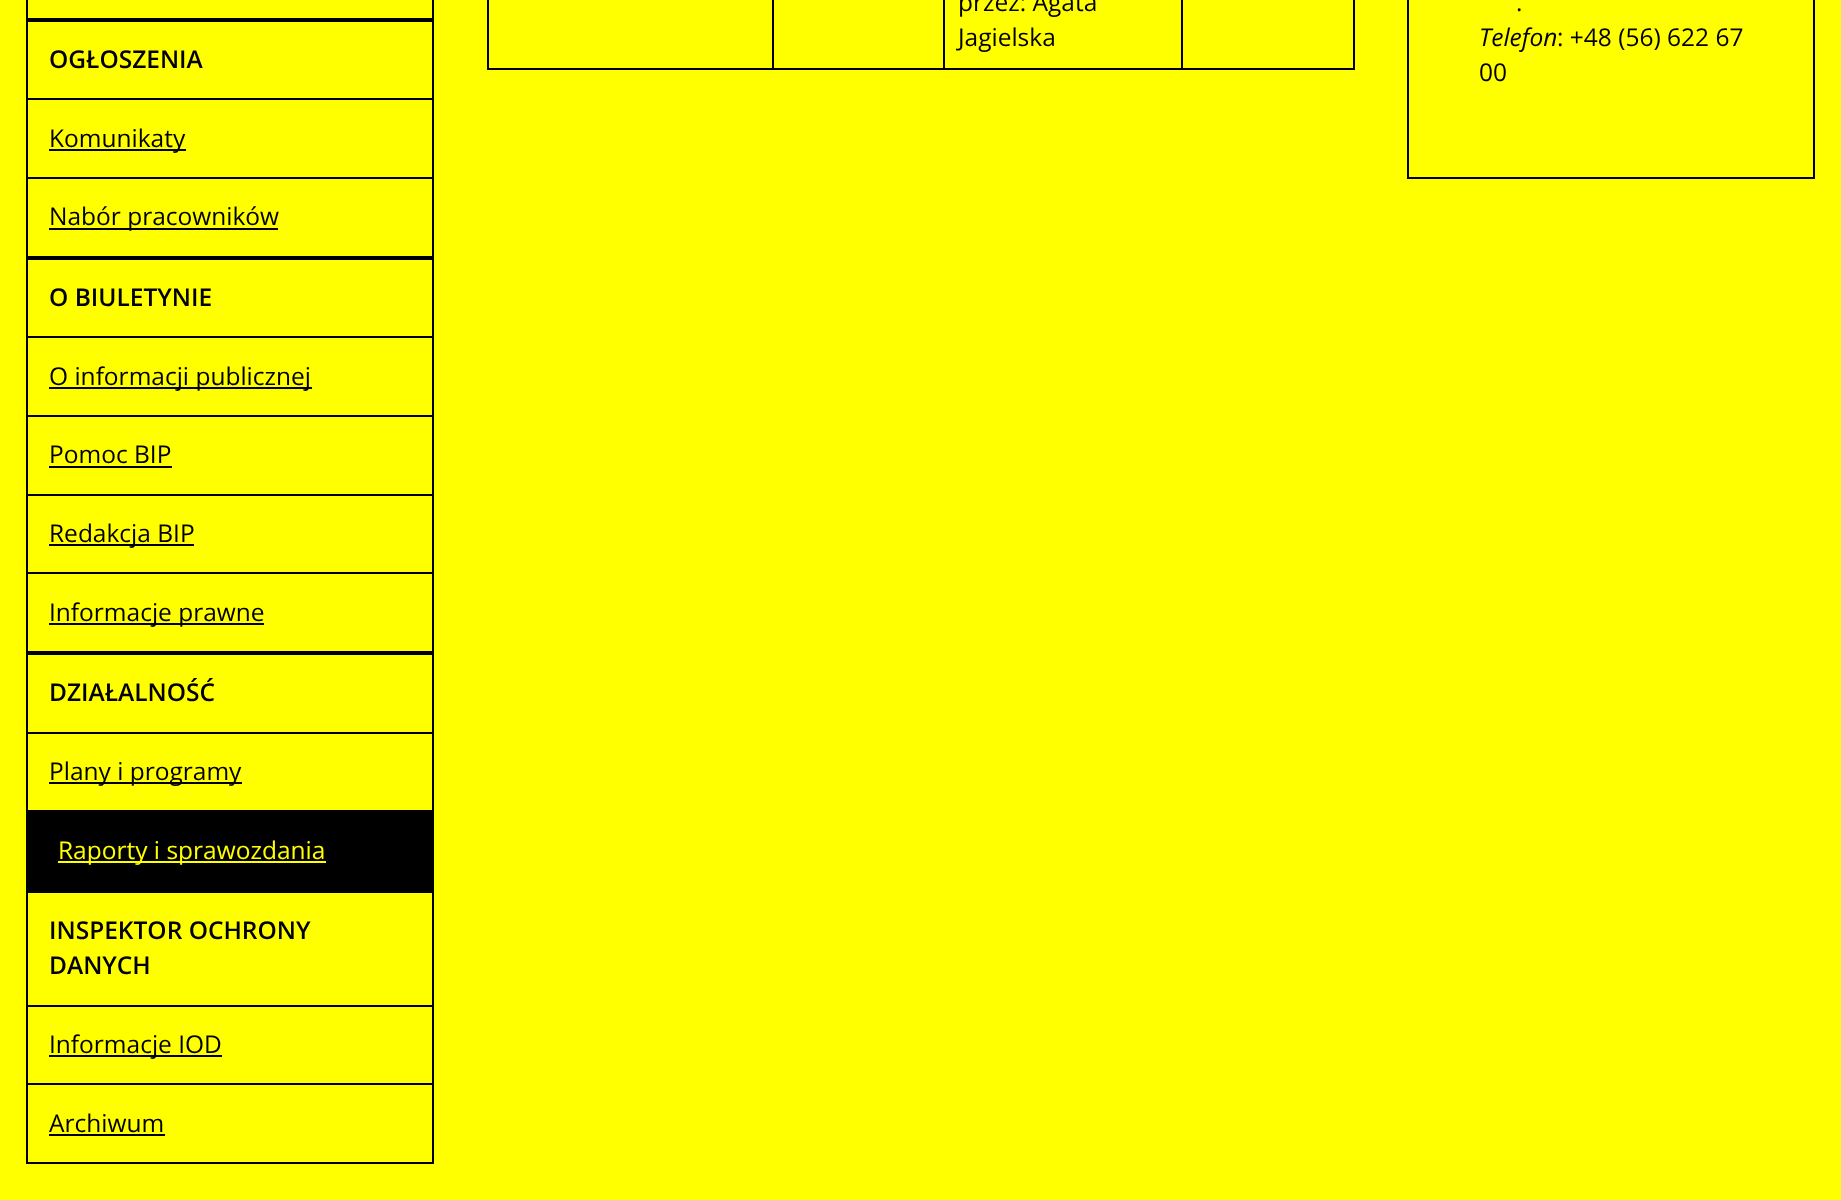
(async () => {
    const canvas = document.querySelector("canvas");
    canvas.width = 1841;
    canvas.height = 1200;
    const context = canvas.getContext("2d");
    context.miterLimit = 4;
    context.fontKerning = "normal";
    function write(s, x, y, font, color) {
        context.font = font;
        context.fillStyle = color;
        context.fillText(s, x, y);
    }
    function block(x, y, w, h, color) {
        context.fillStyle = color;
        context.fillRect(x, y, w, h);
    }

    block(0, 0, 1841, 1200, "rgb(255, 255, 0)");
    context.strokeStyle = "rgb(0, 0, 0)";
    context.lineWidth = 2;
    context.strokeRect(27, -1, 406, 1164);
    block(28, 18, 404, 4, "rgb(0, 0, 0)");
    write("OGŁOSZENIA", 49, 68, "600 24.5px Open Sans", "rgb(0, 0, 0)");
    block(28, 98, 404, 2, "rgb(0, 0, 0)");
    block(49, 149, 137, 2, "rgb(0, 0, 0)");
    write("Komunikaty", 49, 147, "24.5px Open Sans", "rgb(0, 0, 0)");
    block(28, 177, 404, 2, "rgb(0, 0, 0)");
    block(49, 228, 229, 2, "rgb(0, 0, 0)");
    write("Nabór pracowników", 49, 225, "24.5px Open Sans", "rgb(0, 0, 0)");
    block(28, 256, 404, 4, "rgb(0, 0, 0)");
    write("O BIULETYNIE", 49, 306, "600 24.5px Open Sans", "rgb(0, 0, 0)");
    block(28, 336, 404, 2, "rgb(0, 0, 0)");
    block(49, 387, 263, 2, "rgb(0, 0, 0)");
    write("O informacji publicznej", 49, 385, "24.5px Open Sans", "rgb(0, 0, 0)");
    block(28, 415, 404, 2, "rgb(0, 0, 0)");
    write("Pomoc BIP", 49, 463, "24.5px Open Sans", "rgb(0, 0, 0)");
    block(49, 466, 123, 2, "rgb(0, 0, 0)");
    block(28, 494, 404, 2, "rgb(0, 0, 0)");
    block(49, 544, 145, 2, "rgb(0, 0, 0)");
    write("Redakcja BIP", 49, 542, "24.5px Open Sans", "rgb(0, 0, 0)");
    block(28, 572, 404, 2, "rgb(0, 0, 0)");
    block(49, 623, 215, 2, "rgb(0, 0, 0)");
    write("Informacje prawne", 49, 621, "24.5px Open Sans", "rgb(0, 0, 0)");
    block(28, 651, 404, 4, "rgb(0, 0, 0)");
    write("DZIAŁALNOŚĆ", 49, 701, "600 24.5px Open Sans", "rgb(0, 0, 0)");
    block(28, 732, 404, 2, "rgb(0, 0, 0)");
    block(49, 782, 193, 2, "rgb(0, 0, 0)");
    write("Plany i programy", 49, 780, "24.5px Open Sans", "rgb(0, 0, 0)");
    block(28, 810, 404, 83, "rgb(0, 0, 0)");
    block(58, 861, 268, 2, "rgb(255, 255, 0)");
    write("Raporty i sprawozdania", 58, 859, "24.5px Open Sans", "rgb(255, 255, 0)");
    write("INSPEKTOR OCHRONY", 49, 939, "600 24.5px Open Sans", "rgb(0, 0, 0)");
    write("DANYCH", 49, 974, "600 24.5px Open Sans", "rgb(0, 0, 0)");
    block(28, 1005, 404, 2, "rgb(0, 0, 0)");
    block(49, 1055, 173, 2, "rgb(0, 0, 0)");
    write("Informacje IOD", 49, 1053, "24.5px Open Sans", "rgb(0, 0, 0)");
    block(28, 1083, 404, 2, "rgb(0, 0, 0)");
    write("Archiwum", 49, 1132, "24.5px Open Sans", "rgb(0, 0, 0)");
    block(49, 1134, 116, 2, "rgb(0, 0, 0)");
    block(1353, 0, 2, 70, "rgb(0, 0, 0)");
    block(1181, 68, 174, 2, "rgb(0, 0, 0)");
    block(1181, 0, 2, 70, "rgb(0, 0, 0)");
    block(943, 68, 240, 2, "rgb(0, 0, 0)");
    block(943, 0, 2, 70, "rgb(0, 0, 0)");
    block(772, 68, 173, 2, "rgb(0, 0, 0)");
    block(772, 0, 2, 70, "rgb(0, 0, 0)");
    block(487, 68, 287, 2, "rgb(0, 0, 0)");
    block(487, 0, 2, 70, "rgb(0, 0, 0)");
    write("przez: Agata", 958, 11, "24.5px Open Sans", "rgb(0, 0, 0)");
    write("Jagielska", 958, 46, "24.5px Open Sans", "rgb(0, 0, 0)");
    context.strokeRect(1408, -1, 406, 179);
    write(".", 1516, 11, "24.5px Open Sans", "rgb(0, 0, 0)");
    write("Telefon", 1479, 46, "italic 24.5px Open Sans", "rgb(0, 0, 0)");
    write(": +48 (56) 622 67", 1557, 46, "24.5px Open Sans", "rgb(0, 0, 0)");
    write("00", 1479, 81, "24.5px Open Sans", "rgb(0, 0, 0)");
})();
